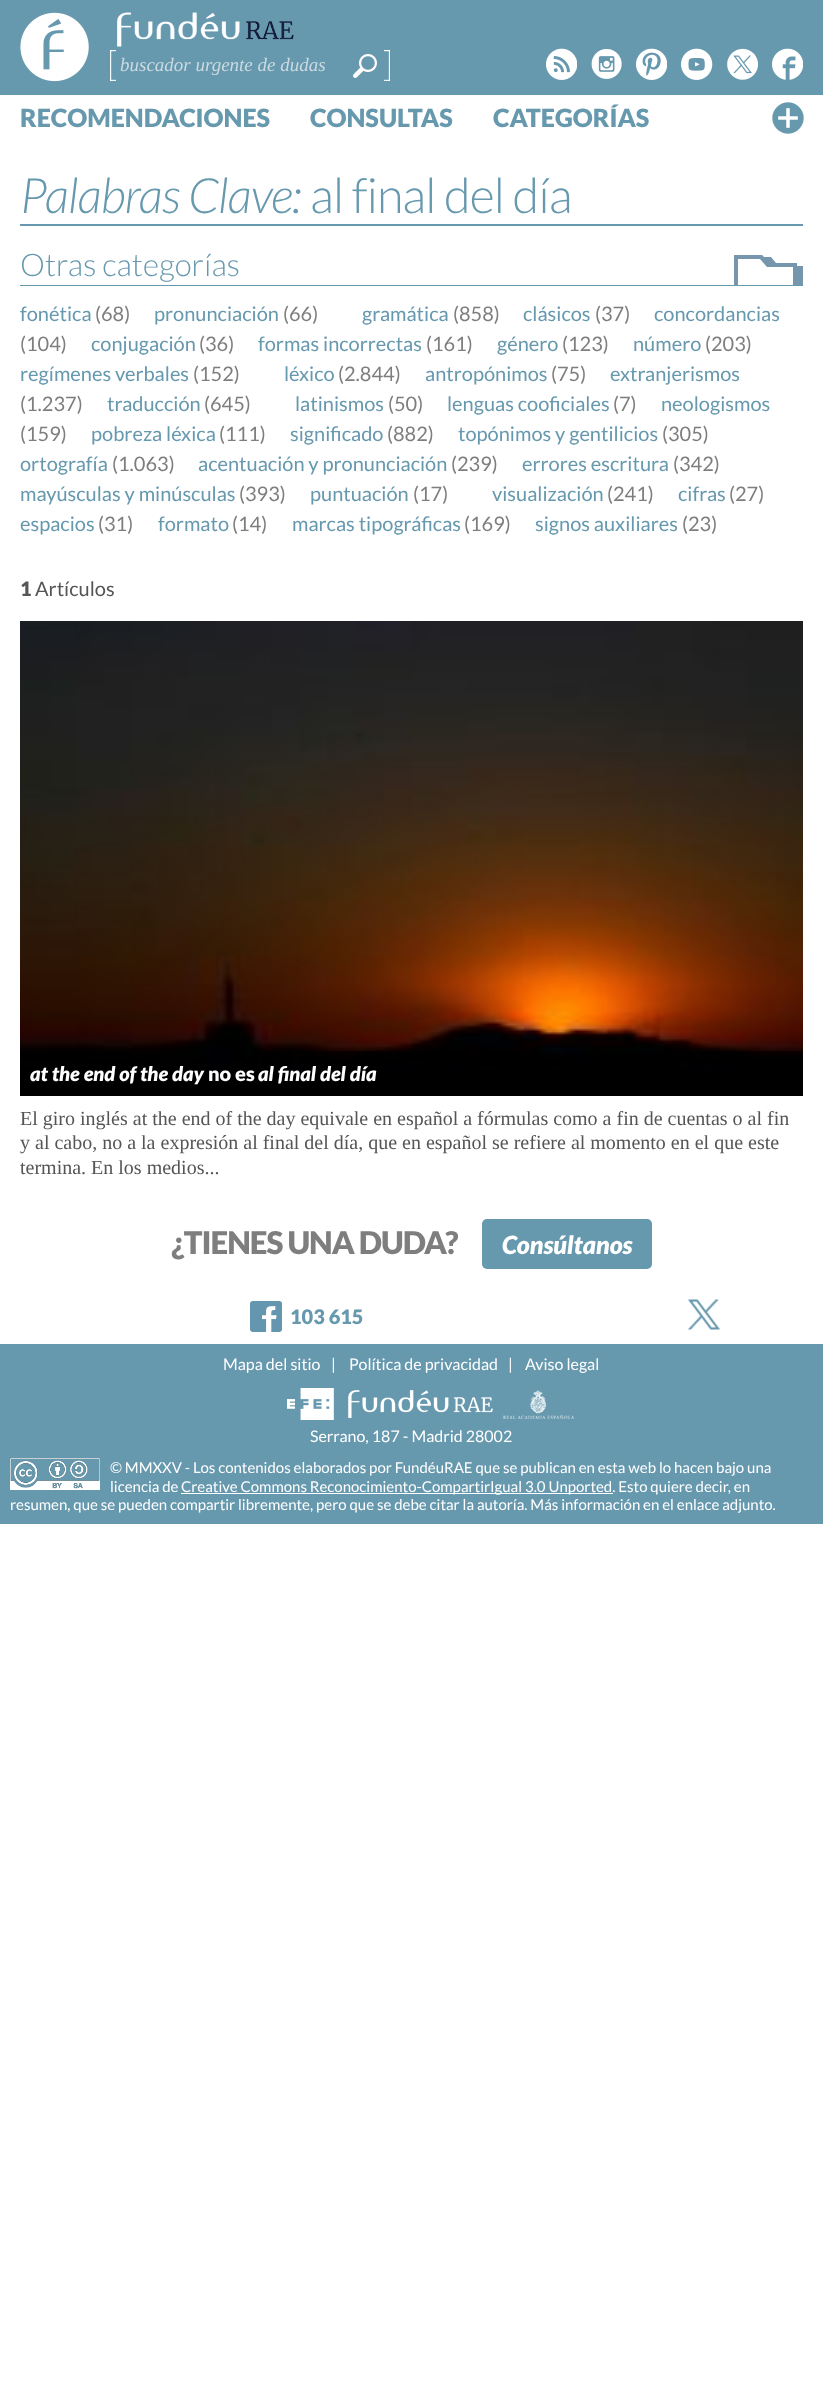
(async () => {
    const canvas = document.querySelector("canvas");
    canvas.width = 823;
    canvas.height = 2395;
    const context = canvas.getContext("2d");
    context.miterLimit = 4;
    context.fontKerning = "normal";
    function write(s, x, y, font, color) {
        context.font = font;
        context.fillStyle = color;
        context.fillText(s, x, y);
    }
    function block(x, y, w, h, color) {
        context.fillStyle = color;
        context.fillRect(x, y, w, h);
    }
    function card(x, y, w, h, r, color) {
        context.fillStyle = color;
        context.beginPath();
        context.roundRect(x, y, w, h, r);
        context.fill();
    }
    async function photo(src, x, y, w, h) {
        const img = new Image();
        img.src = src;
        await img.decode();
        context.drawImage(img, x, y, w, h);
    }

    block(0, 0, 823, 2395, "rgb(255, 255, 255)");
    block(0, 0, 823, 95, "rgb(102, 152, 174)");
    await photo("media/1.png", 20, 12, 69, 70);
    await photo("media/2.png", 117, 12, 177, 35);
    await photo("media/3.png", 110, 50, 280, 31);
    write("buscador urgente de dudas", 120, 71, "italic 19px Tinos", "rgb(204, 218, 225)");
    await photo("media/4.png", 353, 54, 24, 24);
    await photo("media/5.png", 546, 48, 31, 32);
    await photo("media/6.png", 591, 48, 31, 31);
    await photo("media/7.png", 636, 48, 31, 32);
    await photo("media/8.png", 681, 48, 32, 32);
    await photo("media/9.png", 727, 48, 31, 32);
    await photo("media/10.png", 772, 48, 31, 32);
    write("RECOMENDACIONES", 20, 127, "900 25px Lato", "rgb(102, 152, 174)");
    write("CONSULTAS", 310, 127, "900 25px Lato", "rgb(102, 152, 174)");
    write("CATEGORÍAS", 493, 127, "900 25px Lato", "rgb(102, 152, 174)");
    await photo("media/11.png", 772, 102, 32, 32);
    block(20, 224, 783, 2, "rgb(102, 152, 174)");
    context.letterSpacing = "-1px";
    write("Palabras Clave:", 20, 213, "italic 300 48.75px Lato", "rgb(102, 152, 174)");
    write("al final del día", 310, 213, "300 48.75px Lato", "rgb(102, 152, 174)");
    context.fillStyle = "rgb(117, 150, 172)";
    context.beginPath();
    context.moveTo(797, 266);
    context.lineTo(797, 263);
    context.lineTo(776, 263);
    context.lineTo(771, 257);
    context.lineTo(764, 257);
    context.lineTo(762, 255);
    context.lineTo(734, 255);
    context.lineTo(734, 285);
    context.lineTo(738, 285);
    context.lineTo(738, 259);
    context.lineTo(760, 259);
    context.lineTo(767, 267);
    context.lineTo(793, 267);
    context.lineTo(793, 285);
    context.lineTo(803, 285);
    context.lineTo(803, 266);
    context.closePath();
    context.fill();
    block(20, 285, 783, 1, "rgb(102, 152, 174)");
    context.letterSpacing = "0px";
    write("Otras categorías", 20, 276, "300 31.25px Lato", "rgb(102, 152, 174)");
    write("fonética", 20, 321, "20px Lato", "rgb(102, 152, 174)");
    write("(68)", 95, 321, "20px Lato", "rgb(126, 126, 126)");
    write("pronunciación", 154, 321, "20px Lato", "rgb(102, 152, 174)");
    write("(66)", 283, 321, "20px Lato", "rgb(126, 126, 126)");
    write("gramática", 362, 321, "20px Lato", "rgb(102, 152, 174)");
    write("(858)", 453, 321, "20px Lato", "rgb(126, 126, 126)");
    write("clásicos", 523, 321, "20px Lato", "rgb(102, 152, 174)");
    write("(37)", 595, 321, "20px Lato", "rgb(126, 126, 126)");
    write("concordancias", 654, 321, "20px Lato", "rgb(102, 152, 174)");
    write("(104)", 20, 351, "20px Lato", "rgb(126, 126, 126)");
    write("conjugación", 91, 351, "20px Lato", "rgb(102, 152, 174)");
    write("(36)", 199, 351, "20px Lato", "rgb(126, 126, 126)");
    write("formas incorrectas", 258, 351, "20px Lato", "rgb(102, 152, 174)");
    write("(161)", 426, 351, "20px Lato", "rgb(126, 126, 126)");
    write("género", 497, 351, "20px Lato", "rgb(102, 152, 174)");
    write("(123)", 562, 351, "20px Lato", "rgb(126, 126, 126)");
    write("número", 633, 351, "20px Lato", "rgb(102, 152, 174)");
    write("(203)", 705, 351, "20px Lato", "rgb(126, 126, 126)");
    write("regímenes verbales", 20, 381, "20px Lato", "rgb(102, 152, 174)");
    write("(152)", 193, 381, "20px Lato", "rgb(126, 126, 126)");
    write("léxico", 284, 381, "20px Lato", "rgb(102, 152, 174)");
    write("(2.844)", 338, 381, "20px Lato", "rgb(126, 126, 126)");
    write("antropónimos", 425, 381, "20px Lato", "rgb(102, 152, 174)");
    write("(75)", 551, 381, "20px Lato", "rgb(126, 126, 126)");
    write("extranjerismos", 610, 381, "20px Lato", "rgb(102, 152, 174)");
    write("(1.237)", 20, 411, "20px Lato", "rgb(126, 126, 126)");
    write("traducción", 107, 411, "20px Lato", "rgb(102, 152, 174)");
    write("(645)", 204, 411, "20px Lato", "rgb(126, 126, 126)");
    write("latinismos", 295, 411, "20px Lato", "rgb(102, 152, 174)");
    write("(50)", 388, 411, "20px Lato", "rgb(126, 126, 126)");
    write("lenguas cooficiales", 447, 411, "20px Lato", "rgb(102, 152, 174)");
    write("(7)", 613, 411, "20px Lato", "rgb(126, 126, 126)");
    write("neologismos", 661, 411, "20px Lato", "rgb(102, 152, 174)");
    write("(159)", 20, 441, "20px Lato", "rgb(126, 126, 126)");
    write("pobreza léxica", 91, 441, "20px Lato", "rgb(102, 152, 174)");
    write("(111)", 219, 441, "20px Lato", "rgb(126, 126, 126)");
    write("significado", 290, 441, "20px Lato", "rgb(102, 152, 174)");
    write("(882)", 387, 441, "20px Lato", "rgb(126, 126, 126)");
    write("topónimos y gentilicios", 458, 441, "20px Lato", "rgb(102, 152, 174)");
    write("(305)", 662, 441, "20px Lato", "rgb(126, 126, 126)");
    write("ortografía", 20, 471, "20px Lato", "rgb(102, 152, 174)");
    write("(1.063)", 112, 471, "20px Lato", "rgb(126, 126, 126)");
    write("acentuación y pronunciación", 198, 471, "20px Lato", "rgb(102, 152, 174)");
    write("(239)", 451, 471, "20px Lato", "rgb(126, 126, 126)");
    write("errores escritura", 522, 471, "20px Lato", "rgb(102, 152, 174)");
    write("(342)", 673, 471, "20px Lato", "rgb(126, 126, 126)");
    write("mayúsculas y minúsculas", 20, 501, "20px Lato", "rgb(102, 152, 174)");
    write("(393)", 239, 501, "20px Lato", "rgb(126, 126, 126)");
    write("puntuación", 310, 501, "20px Lato", "rgb(102, 152, 174)");
    write("(17)", 413, 501, "20px Lato", "rgb(126, 126, 126)");
    write("visualización", 492, 501, "20px Lato", "rgb(102, 152, 174)");
    write("(241)", 607, 501, "20px Lato", "rgb(126, 126, 126)");
    write("cifras", 678, 501, "20px Lato", "rgb(102, 152, 174)");
    write("(27)", 729, 501, "20px Lato", "rgb(126, 126, 126)");
    write("espacios", 20, 531, "20px Lato", "rgb(102, 152, 174)");
    write("(31)", 98, 531, "20px Lato", "rgb(126, 126, 126)");
    write("formato", 158, 531, "20px Lato", "rgb(102, 152, 174)");
    write("(14)", 232, 531, "20px Lato", "rgb(126, 126, 126)");
    write("marcas tipográficas", 292, 531, "20px Lato", "rgb(102, 152, 174)");
    write("(169)", 464, 531, "20px Lato", "rgb(126, 126, 126)");
    write("signos auxiliares", 535, 531, "20px Lato", "rgb(102, 152, 174)");
    write("(23)", 682, 531, "20px Lato", "rgb(126, 126, 126)");
    write("1", 20, 596, "900 20px Lato", "rgb(85, 85, 85)");
    write("Artículos", 35, 596, "20px Lato", "rgb(85, 85, 85)");
    await photo("media/12.png", 20, 621, 783, 475);
    block(261, 1051, 542, 16, "rgba(0, 0, 0, 0.5)");
    write("at the end of the day", 30, 1081, "italic 900 20px Lato", "rgb(255, 255, 255)");
    write("no es", 208, 1081, "900 20px Lato", "rgb(255, 255, 255)");
    write("al final del día", 258, 1081, "italic 900 20px Lato", "rgb(255, 255, 255)");
    write("El giro inglés at the end of the day equivale en español a fórmulas como a fin de cuentas o al fin", 20, 1125, "20px Tinos", "rgb(85, 85, 85)");
    write("y al cabo, no a la expresión al final del día, que en español se refiere al momento en el que este", 20, 1149, "20px Tinos", "rgb(85, 85, 85)");
    write("termina. En los medios...", 20, 1174, "20px Tinos", "rgb(85, 85, 85)");
    context.letterSpacing = "-1px";
    write("¿TIENES UNA DUDA?", 171, 1254, "900 31.25px Lato", "rgb(126, 126, 126)");
    card(482, 1219, 170, 50, 5, "rgb(102, 152, 174)");
    context.letterSpacing = "0px";
    write("Consúltanos", 502, 1254, "italic 900 25px Lato", "rgb(255, 255, 255)");
    await photo("media/13.png", 250, 1301, 32, 31);
    write("103 615", 290, 1324, "900 20px Lato", "rgb(102, 152, 174)");
    await photo("media/14.png", 688, 1299, 32, 31);
    block(0, 1344, 823, 180, "rgb(102, 152, 174)");
    write("Mapa del sitio", 223, 1370, "16px Lato", "rgb(255, 255, 255)");
    write("|", 331, 1370, "16px Lato", "rgb(255, 255, 255)");
    write("Política de privacidad", 349, 1370, "16px Lato", "rgb(255, 255, 255)");
    write("|", 508, 1370, "16px Lato", "rgb(255, 255, 255)");
    write("Aviso legal", 525, 1370, "16px Lato", "rgb(255, 255, 255)");
    await photo("media/15.png", 287, 1388, 287, 32);
    write("Serrano, 187 - Madrid 28002", 310, 1442, "16px Lato", "rgb(255, 255, 255)");
    await photo("media/16.png", 10, 1458, 90, 32);
    write("© MMXXV - Los contenidos elaborados por FundéuRAE que se publican en esta web lo hacen bajo una", 110, 1473, "15px Lato", "rgb(255, 255, 255)");
    write("licencia de", 110, 1492, "15px Lato", "rgb(255, 255, 255)");
    block(181, 1493, 432, 1, "rgb(255, 255, 255)");
    write("Creative Commons Reconocimiento-CompartirIgual 3.0 Unported. Esto quiere decir, en", 181, 1492, "15px Lato", "rgb(255, 255, 255)");
    write("resumen, que se pueden compartir libremente, pero que se debe citar la autoría. Más información en el enlace adjunto.", 10, 1510, "15px Lato", "rgb(255, 255, 255)");
})();
